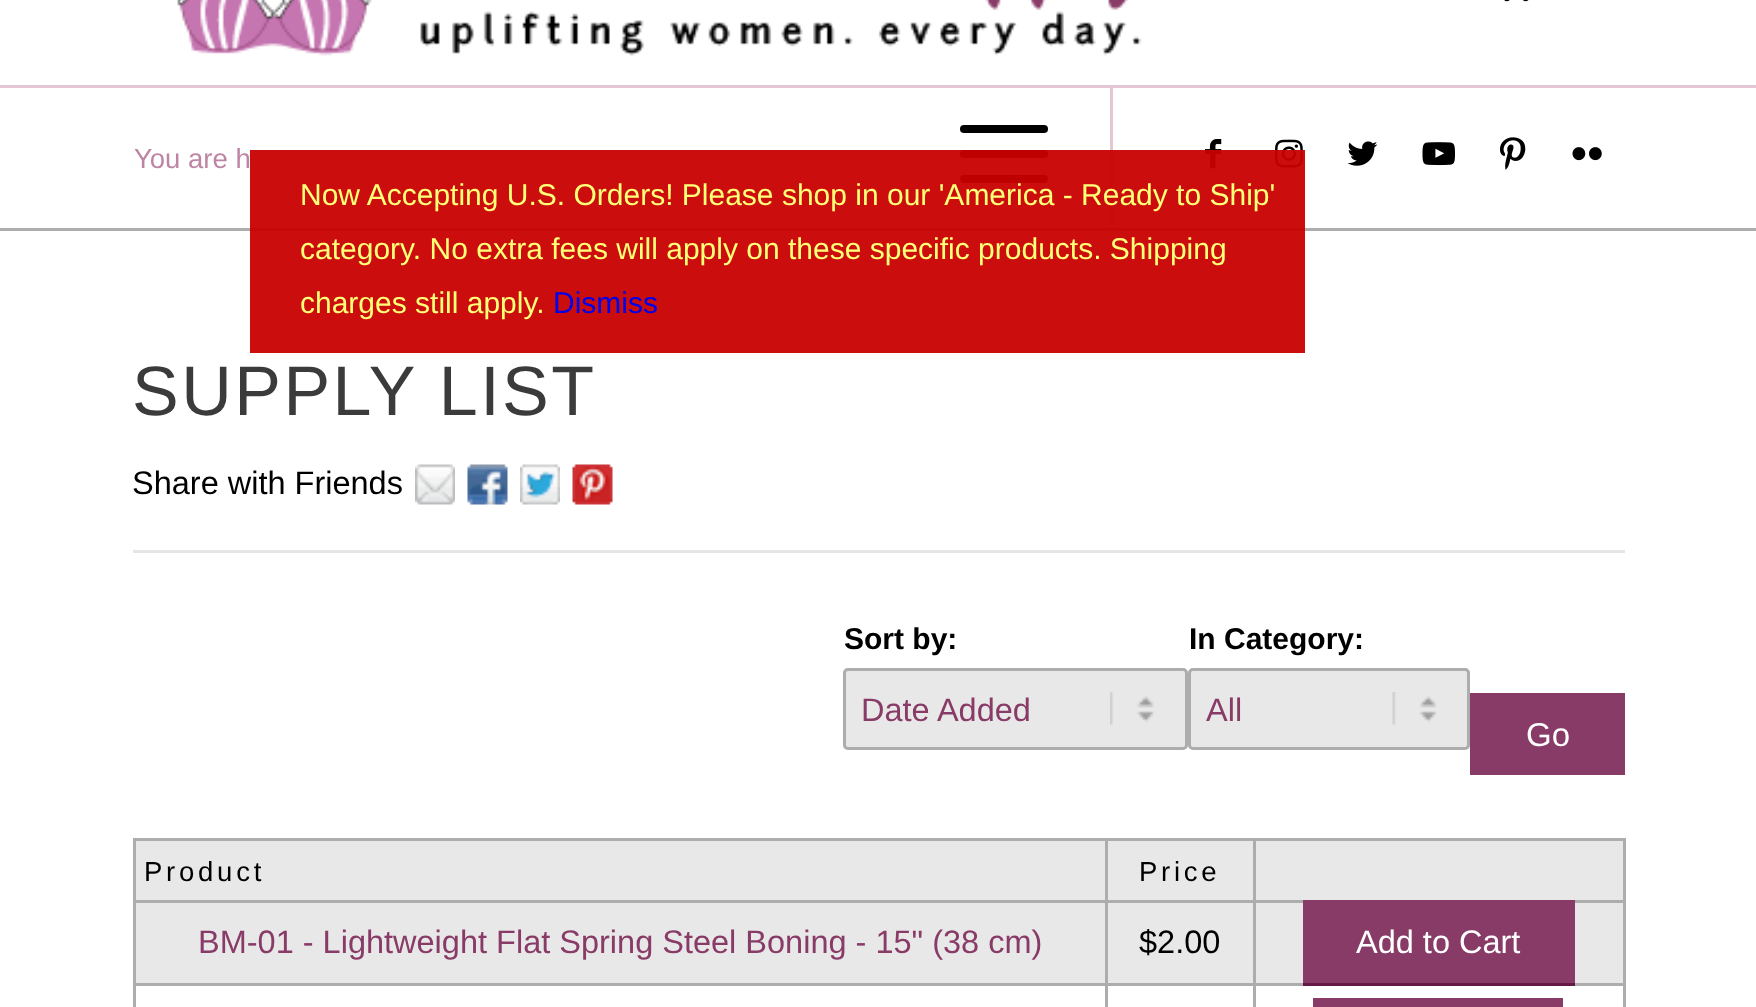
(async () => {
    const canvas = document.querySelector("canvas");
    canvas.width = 1756;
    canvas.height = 1007;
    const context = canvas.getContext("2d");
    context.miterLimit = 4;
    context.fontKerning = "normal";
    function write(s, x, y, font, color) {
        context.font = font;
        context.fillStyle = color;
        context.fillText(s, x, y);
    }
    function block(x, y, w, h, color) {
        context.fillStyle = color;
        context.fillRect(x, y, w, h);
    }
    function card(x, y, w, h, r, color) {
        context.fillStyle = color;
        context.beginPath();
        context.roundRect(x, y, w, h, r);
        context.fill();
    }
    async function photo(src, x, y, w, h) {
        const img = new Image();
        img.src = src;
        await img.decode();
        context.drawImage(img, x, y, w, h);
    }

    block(0, 0, 1756, 1007, "rgb(255, 255, 255)");
    block(0, 85, 1756, 3, "rgb(228, 198, 212)");
    await photo("media/1.png", 177, 0, 965, 56);
    await photo("media/2.png", 1504, 0, 25, 2);
    block(1110, 85, 3, 140, "rgb(228, 198, 212)");
    card(960, 150, 88, 8, 4, "rgb(0, 0, 0)");
    card(960, 125, 88, 8, 4, "rgb(0, 0, 0)");
    card(960, 175, 88, 8, 4, "rgb(0, 0, 0)");
    await photo("media/3.png", 1205, 139, 17, 30);
    await photo("media/4.png", 1275, 139, 28, 29);
    await photo("media/5.png", 1347, 141, 31, 25);
    await photo("media/6.png", 1422, 142, 33, 24);
    await photo("media/7.png", 1500, 137, 26, 33);
    await photo("media/8.png", 1572, 147, 30, 14);
    write("You are h", 134, 168, "27.5px Liberation Sans", "rgb(190, 132, 163)");
    block(0, 228, 1756, 3, "rgb(173, 173, 173)");
    context.letterSpacing = "2.5px";
    write("SUPPLY LIST", 132, 415, "70px Liberation Sans", "rgb(59, 59, 59)");
    block(133, 550, 1492, 3, "rgb(229, 229, 229)");
    context.letterSpacing = "0px";
    write("Share with Friends", 132, 494, "32.5px Liberation Sans", "rgb(0, 0, 0)");
    await photo("media/9.png", 415, 464, 40, 41);
    await photo("media/10.png", 467, 464, 41, 41);
    await photo("media/11.png", 520, 464, 40, 41);
    await photo("media/12.png", 572, 464, 41, 41);
    write("Sort by:", 844, 649, "bold 30px Liberation Sans", "rgb(0, 0, 0)");
    write("In Category:", 1189, 649, "bold 30px Liberation Sans", "rgb(0, 0, 0)");
    card(843, 668, 345, 82, 5, "rgb(232, 232, 232)");
    await photo("media/13.png", 1110, 692, 44, 33);
    context.beginPath();
    context.roundRect(844.5, 669.5, 342, 79, 3.5);
    context.strokeStyle = "rgb(173, 173, 173)";
    context.lineWidth = 3;
    context.stroke();
    write("Date Added", 861, 721, "32.5px Liberation Sans", "rgb(137, 59, 103)");
    card(1188, 668, 282, 82, 5, "rgb(232, 232, 232)");
    await photo("media/14.png", 1392, 692, 45, 33);
    context.beginPath();
    context.roundRect(1189.5, 669.5, 279, 79, 3.5);
    context.stroke();
    write("All", 1206, 721, "32.5px Liberation Sans", "rgb(137, 59, 103)");
    block(1470, 693, 155, 82, "rgb(137, 59, 103)");
    write("Go", 1526, 746, "33px Liberation Sans", "rgb(255, 255, 255)");
    block(136, 903, 1487, 80, "rgb(232, 232, 232)");
    block(136, 841, 1487, 59, "rgb(232, 232, 232)");
    block(133, 838, 1492, 3, "rgb(173, 173, 173)");
    block(133, 900, 1492, 3, "rgb(173, 173, 173)");
    block(1623, 983, 3, 24, "rgb(173, 173, 173)");
    block(1623, 900, 3, 85, "rgb(173, 173, 173)");
    block(1623, 838, 3, 65, "rgb(173, 173, 173)");
    block(1253, 983, 3, 24, "rgb(173, 173, 173)");
    block(1253, 983, 372, 3, "rgb(173, 173, 173)");
    block(1253, 900, 3, 85, "rgb(173, 173, 173)");
    block(1105, 983, 3, 24, "rgb(173, 173, 173)");
    block(1105, 983, 150, 3, "rgb(173, 173, 173)");
    block(1105, 900, 3, 85, "rgb(173, 173, 173)");
    block(1105, 838, 3, 65, "rgb(173, 173, 173)");
    block(133, 983, 3, 24, "rgb(173, 173, 173)");
    block(133, 983, 975, 3, "rgb(173, 173, 173)");
    block(133, 900, 3, 85, "rgb(173, 173, 173)");
    block(133, 838, 3, 65, "rgb(173, 173, 173)");
    context.letterSpacing = "3.75px";
    write("Product", 144, 881, "27.5px Liberation Sans", "rgb(0, 0, 0)");
    block(1253, 838, 3, 65, "rgb(173, 173, 173)");
    write("Price", 1139, 881, "27.5px Liberation Sans", "rgb(0, 0, 0)");
    context.letterSpacing = "0px";
    write("BM-01 - Lightweight Flat Spring Steel Boning - 15\" (38 cm)", 198, 953, "32.5px Liberation Sans", "rgb(137, 59, 103)");
    write("$2.00", 1139, 953, "32.5px Liberation Sans", "rgb(0, 0, 0)");
    block(1303, 900, 272, 83, "rgb(137, 59, 103)");
    write("Add to Cart", 1356, 953, "32.5px Liberation Sans", "rgb(255, 255, 255)");
    block(1303, 983, 272, 3, "rgb(103, 25, 69)");
    block(1313, 998, 250, 9, "rgb(137, 59, 103)");
    block(250, 150, 1055, 203, "rgba(200, 0, 0, 0.95)");
    write("Now Accepting U.S. Orders! Please shop in our 'America - Ready to Ship'", 300, 205, "30px Liberation Sans", "rgb(255, 255, 120)");
    write("category. No extra fees will apply on these specific products. Shipping", 300, 259, "30px Liberation Sans", "rgb(255, 255, 120)");
    write("charges still apply.", 300, 313, "30px Liberation Sans", "rgb(255, 255, 120)");
    write("Dismiss", 553, 313, "30px Liberation Sans", "rgb(0, 0, 238)");
})();
